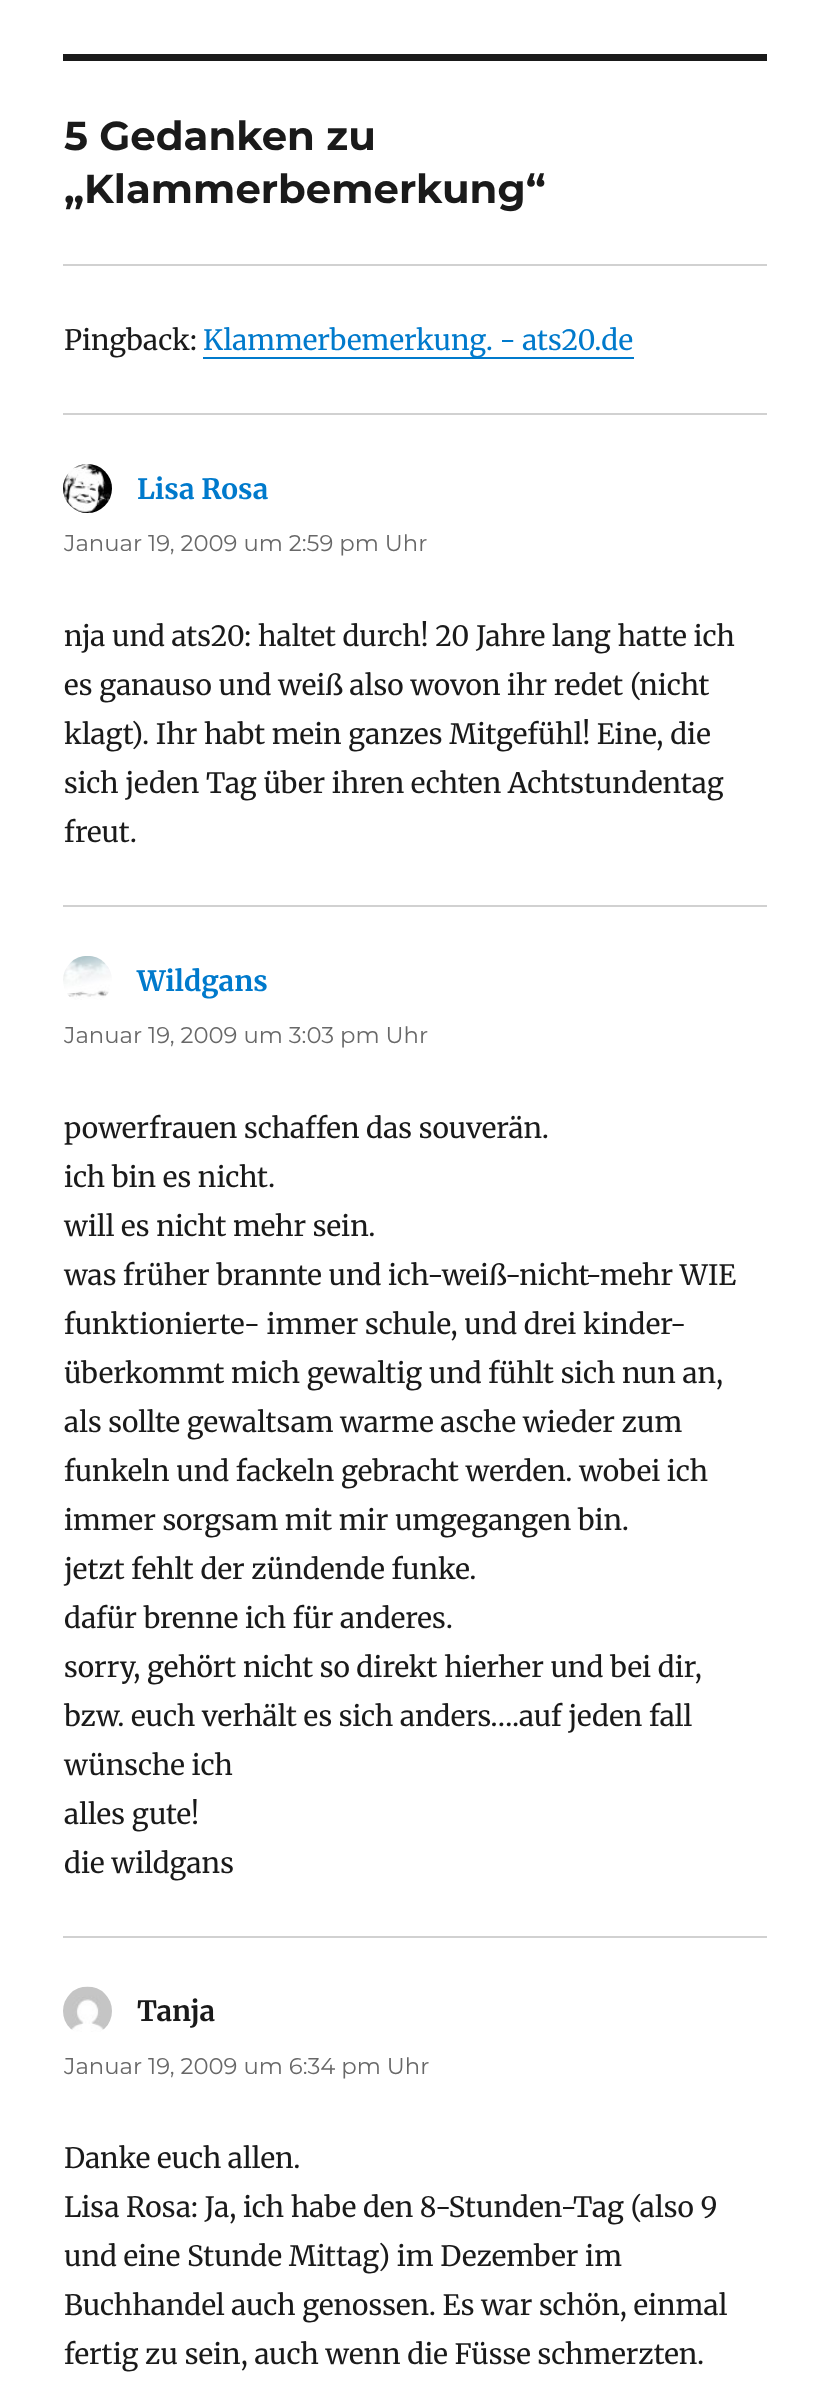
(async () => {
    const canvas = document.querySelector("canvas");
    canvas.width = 829;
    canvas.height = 2398;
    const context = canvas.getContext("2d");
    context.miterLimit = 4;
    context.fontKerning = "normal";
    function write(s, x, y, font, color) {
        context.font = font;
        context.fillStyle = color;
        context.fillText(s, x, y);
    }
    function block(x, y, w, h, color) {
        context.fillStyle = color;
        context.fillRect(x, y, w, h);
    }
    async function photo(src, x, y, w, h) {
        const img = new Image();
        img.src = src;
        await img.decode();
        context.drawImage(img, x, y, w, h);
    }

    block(0, 0, 829, 2398, "rgb(255, 255, 255)");
    block(63, 54, 704, 7, "rgb(26, 26, 26)");
    write("5 Gedanken zu", 64, 150, "bold 40.25px Montserrat", "rgb(26, 26, 26)");
    write("„Klammerbemerkung“", 64, 203, "bold 40.25px Montserrat", "rgb(26, 26, 26)");
    block(63, 264, 704, 2, "rgb(209, 209, 209)");
    write("Pingback:", 64, 350, "28px Merriweather", "rgb(26, 26, 26)");
    context.fillStyle = "rgb(0, 122, 204)";
    context.beginPath();
    context.moveTo(203, 357);
    context.lineTo(203, 359);
    context.lineTo(634, 359);
    context.lineTo(634, 324);
    context.lineTo(634, 357);
    context.closePath();
    context.fill();
    write("Klammerbemerkung. - ats20.de", 203, 350, "28px Merriweather", "rgb(0, 122, 204)");
    block(63, 413, 704, 2, "rgb(209, 209, 209)");
    await photo("media/1.png", 63, 464, 49, 49);
    write("Lisa Rosa", 137, 499, "bold 28px Merriweather", "rgb(0, 122, 204)");
    write("Januar 19, 2009 um 2:59 pm Uhr", 64, 551, "22.75px Montserrat", "rgb(104, 104, 104)");
    write("nja und ats20: haltet durch! 20 Jahre lang hatte ich", 64, 646, "28px Merriweather", "rgb(26, 26, 26)");
    write("es ganauso und weiß also wovon ihr redet (nicht", 64, 695, "28px Merriweather", "rgb(26, 26, 26)");
    write("klagt). Ihr habt mein ganzes Mitgefühl! Eine, die", 64, 744, "28px Merriweather", "rgb(26, 26, 26)");
    write("sich jeden Tag über ihren echten Achtstundentag", 64, 793, "28px Merriweather", "rgb(26, 26, 26)");
    write("freut.", 64, 842, "28px Merriweather", "rgb(26, 26, 26)");
    block(63, 905, 704, 2, "rgb(209, 209, 209)");
    await photo("media/2.png", 63, 956, 49, 44);
    write("Wildgans", 137, 991, "bold 28px Merriweather", "rgb(0, 122, 204)");
    write("Januar 19, 2009 um 3:03 pm Uhr", 64, 1043, "22.75px Montserrat", "rgb(104, 104, 104)");
    write("powerfrauen schaffen das souverän.", 64, 1138, "28px Merriweather", "rgb(26, 26, 26)");
    write("ich bin es nicht.", 64, 1187, "28px Merriweather", "rgb(26, 26, 26)");
    write("will es nicht mehr sein.", 64, 1236, "28px Merriweather", "rgb(26, 26, 26)");
    write("was früher brannte und ich-weiß-nicht-mehr WIE", 64, 1285, "28px Merriweather", "rgb(26, 26, 26)");
    write("funktionierte- immer schule, und drei kinder-", 64, 1334, "28px Merriweather", "rgb(26, 26, 26)");
    write("überkommt mich gewaltig und fühlt sich nun an,", 64, 1383, "28px Merriweather", "rgb(26, 26, 26)");
    write("als sollte gewaltsam warme asche wieder zum", 64, 1432, "28px Merriweather", "rgb(26, 26, 26)");
    write("funkeln und fackeln gebracht werden. wobei ich", 64, 1481, "28px Merriweather", "rgb(26, 26, 26)");
    write("immer sorgsam mit mir umgegangen bin.", 64, 1530, "28px Merriweather", "rgb(26, 26, 26)");
    write("jetzt fehlt der zündende funke.", 64, 1579, "28px Merriweather", "rgb(26, 26, 26)");
    write("dafür brenne ich für anderes.", 64, 1628, "28px Merriweather", "rgb(26, 26, 26)");
    write("sorry, gehört nicht so direkt hierher und bei dir,", 64, 1677, "28px Merriweather", "rgb(26, 26, 26)");
    write("bzw. euch verhält es sich anders….auf jeden fall", 64, 1726, "28px Merriweather", "rgb(26, 26, 26)");
    write("wünsche ich", 64, 1775, "28px Merriweather", "rgb(26, 26, 26)");
    write("alles gute!", 64, 1824, "28px Merriweather", "rgb(26, 26, 26)");
    write("die wildgans", 64, 1873, "28px Merriweather", "rgb(26, 26, 26)");
    block(63, 1936, 704, 2, "rgb(209, 209, 209)");
    await photo("media/3.png", 63, 1986, 49, 46);
    write("Tanja", 137, 2021, "bold 28px Merriweather", "rgb(26, 26, 26)");
    write("Januar 19, 2009 um 6:34 pm Uhr", 64, 2074, "22.75px Montserrat", "rgb(104, 104, 104)");
    write("Danke euch allen.", 64, 2168, "28px Merriweather", "rgb(26, 26, 26)");
    write("Lisa Rosa: Ja, ich habe den 8-Stunden-Tag (also 9", 64, 2217, "28px Merriweather", "rgb(26, 26, 26)");
    write("und eine Stunde Mittag) im Dezember im", 64, 2266, "28px Merriweather", "rgb(26, 26, 26)");
    write("Buchhandel auch genossen. Es war schön, einmal", 64, 2315, "28px Merriweather", "rgb(26, 26, 26)");
    write("fertig zu sein, auch wenn die Füsse schmerzten.", 64, 2364, "28px Merriweather", "rgb(26, 26, 26)");
})();
